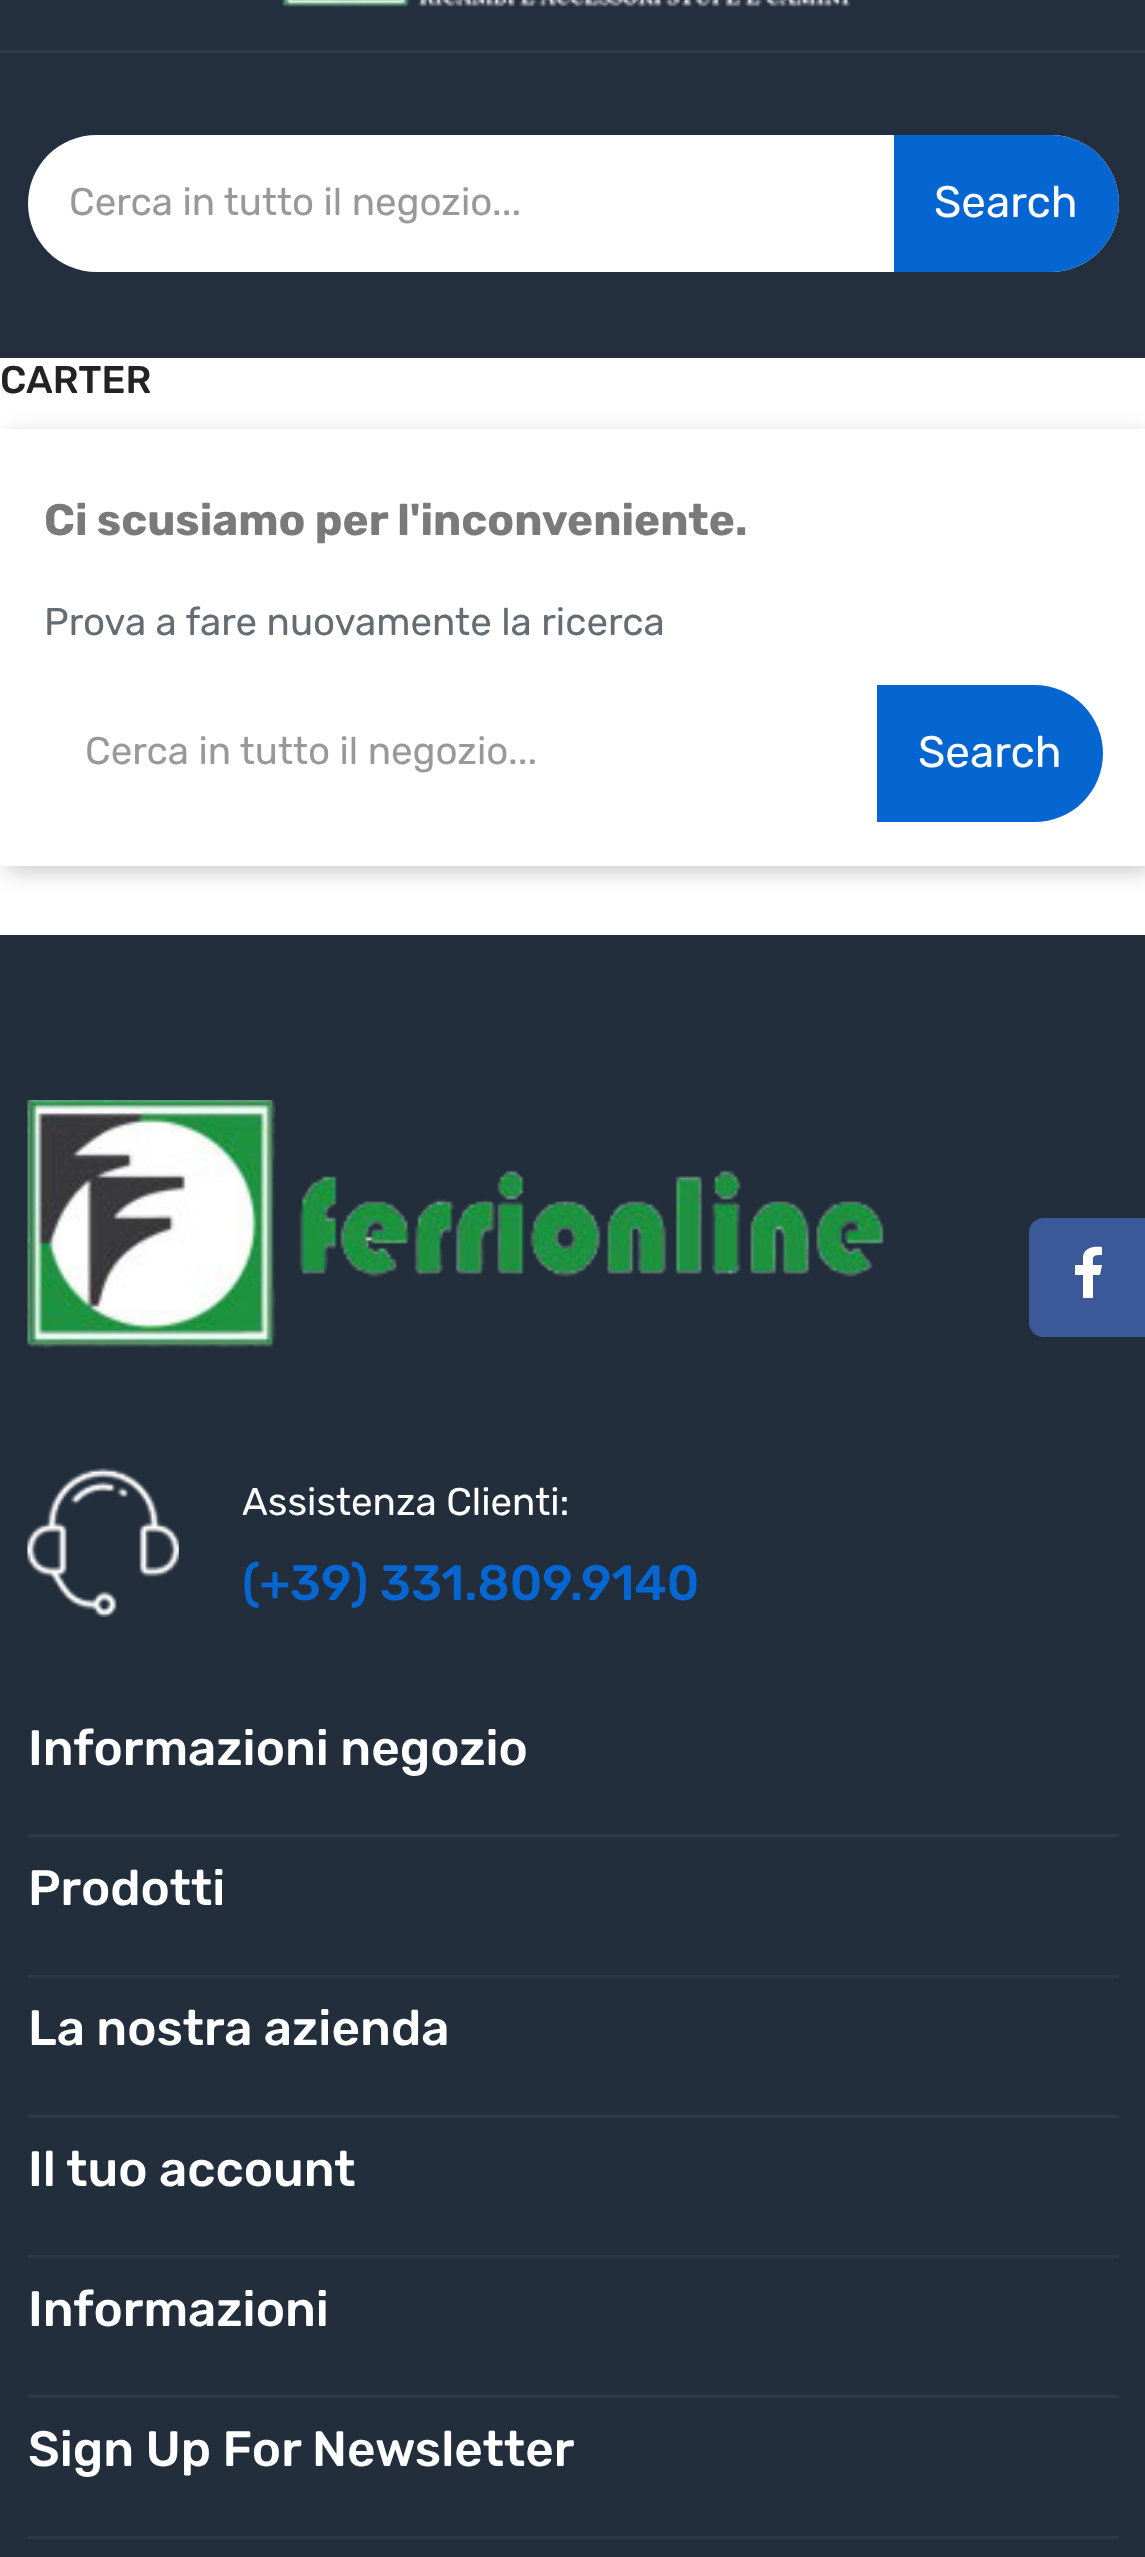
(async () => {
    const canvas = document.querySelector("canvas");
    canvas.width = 1145;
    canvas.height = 2557;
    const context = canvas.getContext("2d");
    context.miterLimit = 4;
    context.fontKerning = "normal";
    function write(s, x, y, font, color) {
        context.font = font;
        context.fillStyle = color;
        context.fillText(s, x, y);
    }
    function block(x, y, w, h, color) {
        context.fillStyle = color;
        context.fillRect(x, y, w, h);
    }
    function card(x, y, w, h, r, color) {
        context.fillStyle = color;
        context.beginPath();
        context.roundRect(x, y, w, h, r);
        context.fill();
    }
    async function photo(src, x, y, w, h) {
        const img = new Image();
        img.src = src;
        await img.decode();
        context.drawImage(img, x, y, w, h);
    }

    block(0, 0, 1145, 2557, "rgb(255, 255, 255)");
    block(0, 0, 1145, 358, "rgb(35, 47, 62)");
    block(0, 50, 1145, 3, "rgb(46, 58, 72)");
    await photo("media/1.png", 282, 0, 569, 7);
    card(28, 135, 1091, 137, 68.5, "rgb(255, 255, 255)");
    write("Cerca in tutto il negozio...", 69, 215, "38.5px Rubik", "rgb(153, 153, 153)");
    context.fillStyle = "rgb(5, 102, 210)";
    context.beginPath();
    context.roundRect(894, 135, 225, 137, [0, 68.5, 68.5, 0]);
    context.fill();
    write("Search", 934, 217, "44px Rubik", "rgb(255, 255, 255)");
    write("CARTER", 0, 393, "500 38.5px Rubik", "rgb(35, 35, 35)");
    context.save();
    context.beginPath();
    context.moveTo(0, 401);
    context.lineTo(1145, 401);
    context.lineTo(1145, 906);
    context.lineTo(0, 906);
    context.closePath();
    context.moveTo(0, 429);
    context.lineTo(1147, 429);
    context.lineTo(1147, 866);
    context.lineTo(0, 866);
    context.closePath();
    context.clip("evenodd");
    context.fillStyle = "rgba(0, 0, 0, 0.2)";
    context.filter = "blur(11px)";
    context.beginPath();
    context.rect(6, 435, 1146, 437);
    context.fill();
    context.filter = "none";
    context.restore();
    write("Ci scusiamo per l'inconveniente.", 44, 535, "bold 44px Rubik", "rgb(122, 122, 122)");
    write("Prova a fare nuovamente la ricerca", 44, 635, "38.5px Rubik", "rgb(101, 109, 116)");
    write("Cerca in tutto il negozio...", 85, 764, "38.5px Rubik", "rgb(153, 153, 153)");
    context.fillStyle = "rgb(5, 102, 210)";
    context.beginPath();
    context.roundRect(877, 685, 226, 137, [0, 68.5, 68.5, 0]);
    context.fill();
    write("Search", 918, 767, "44px Rubik", "rgb(255, 255, 255)");
    block(0, 935, 1145, 1622, "rgb(34, 46, 60)");
    context.fillStyle = "rgb(59, 89, 152)";
    context.beginPath();
    context.moveTo(1043, 1218);
    context.lineTo(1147, 1218);
    context.lineTo(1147, 1337);
    context.lineTo(1043, 1337);
    context.bezierCurveTo(1035.5, 1337, 1029, 1330.5, 1029, 1323);
    context.lineTo(1029, 1232);
    context.bezierCurveTo(1029, 1224.5, 1035.5, 1218, 1043, 1218);
    context.closePath();
    context.fill();
    context.fillStyle = "rgb(255, 255, 255)";
    context.beginPath();
    context.moveTo(1102, 1247);
    context.bezierCurveTo(1094, 1246, 1085, 1247, 1083, 1256);
    context.lineTo(1083, 1265);
    context.lineTo(1075, 1265);
    context.lineTo(1075, 1275);
    context.lineTo(1083, 1275);
    context.lineTo(1083, 1298);
    context.lineTo(1093, 1298);
    context.lineTo(1093, 1275);
    context.lineTo(1100, 1275);
    context.lineTo(1102, 1265);
    context.lineTo(1093, 1265);
    context.bezierCurveTo(1093, 1256, 1092, 1255, 1102, 1255);
    context.closePath();
    context.fill();
    await photo("media/2.png", 27, 1100, 857, 248);
    await photo("media/3.png", 27, 1468, 152, 149);
    write("Assistenza Clienti:", 242, 1515, "38.5px Rubik", "rgb(255, 255, 255)");
    write("(+39) 331.809.9140", 242, 1600, "500 49.5px Rubik", "rgb(5, 102, 210)");
    block(28, 1834, 1091, 3, "rgb(45, 57, 70)");
    write("Informazioni negozio", 28, 1765, "500 49.5px Rubik", "rgb(255, 255, 255)");
    block(28, 1975, 1091, 3, "rgb(45, 57, 70)");
    write("Prodotti", 28, 1905, "500 49.5px Rubik", "rgb(255, 255, 255)");
    block(28, 2115, 1091, 3, "rgb(45, 57, 70)");
    write("La nostra azienda", 28, 2045, "500 49.5px Rubik", "rgb(255, 255, 255)");
    block(28, 2255, 1091, 3, "rgb(45, 57, 70)");
    write("Il tuo account", 28, 2186, "500 49.5px Rubik", "rgb(255, 255, 255)");
    block(28, 2395, 1091, 3, "rgb(45, 57, 70)");
    write("Informazioni", 28, 2326, "500 49.5px Rubik", "rgb(255, 255, 255)");
    block(28, 2536, 1091, 3, "rgb(45, 57, 70)");
    write("Sign Up For Newsletter", 28, 2466, "500 49.5px Rubik", "rgb(255, 255, 255)");
})();
